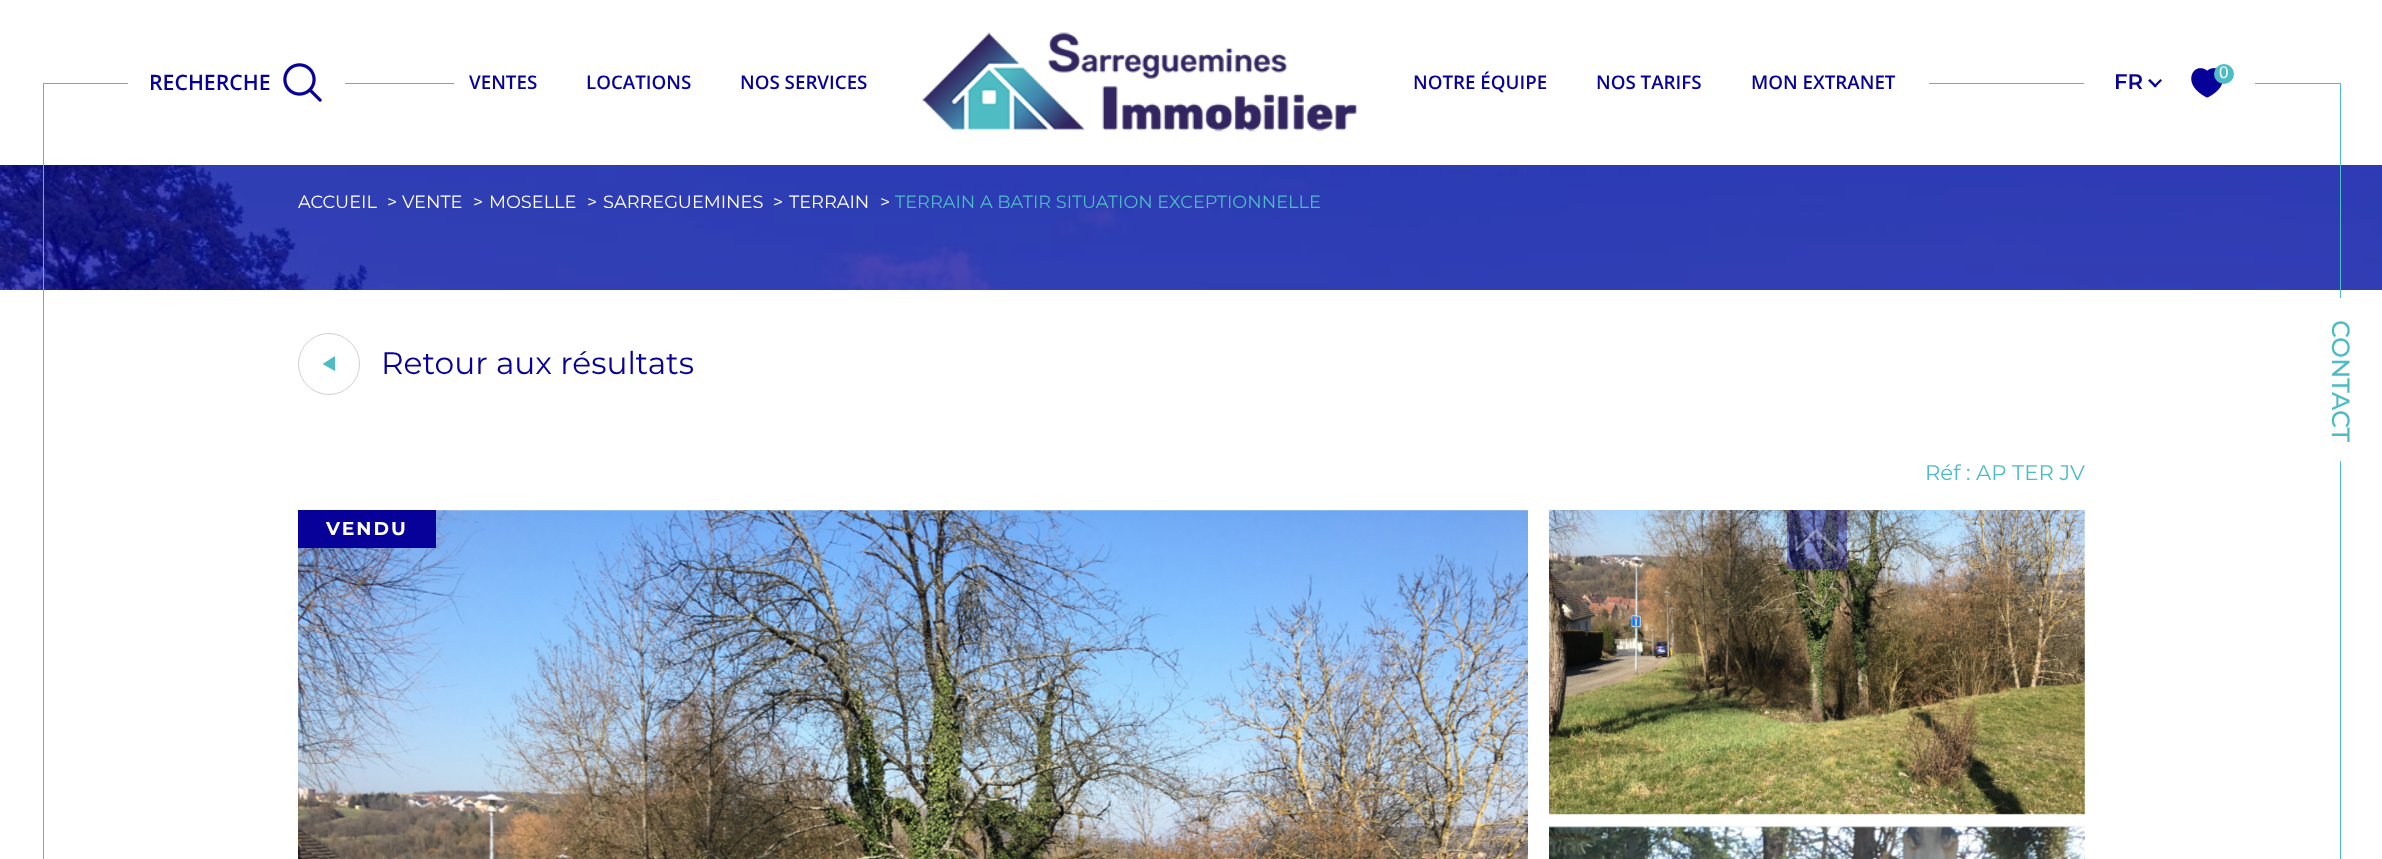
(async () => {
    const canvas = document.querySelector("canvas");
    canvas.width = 2382;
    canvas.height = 859;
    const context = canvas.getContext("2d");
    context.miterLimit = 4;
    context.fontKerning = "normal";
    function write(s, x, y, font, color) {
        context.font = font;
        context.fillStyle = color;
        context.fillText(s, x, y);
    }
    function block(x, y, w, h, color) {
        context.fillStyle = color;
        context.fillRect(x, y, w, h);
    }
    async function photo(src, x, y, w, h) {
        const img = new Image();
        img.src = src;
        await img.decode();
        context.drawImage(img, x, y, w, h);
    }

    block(0, 0, 2382, 859, "rgb(255, 255, 255)");
    block(43, 83, 2297, 1, "rgb(77, 188, 196)");
    block(128, 83, 217, 1, "rgb(255, 255, 255)");
    write("RECHERCHE", 149, 90, "600 21.25px Open Sans", "rgb(7, 0, 153)");
    await photo("media/1.png", 283, 63, 39, 39);
    block(2084, 83, 171, 1, "rgb(255, 255, 255)");
    await photo("media/2.png", 2191, 68, 32, 30);
    context.fillStyle = "rgb(77, 188, 196)";
    context.beginPath();
    context.arc(2224, 74, 10, 0, Math.PI * 2);
    context.fill();
    write("0", 2219, 78, "17px Liberation Sans", "rgb(255, 255, 255)");
    write("FR", 2114, 89, "100 21.25px 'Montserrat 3'", "rgb(7, 0, 153)");
    context.beginPath();
    context.moveTo(2160.5, 79);
    context.lineTo(2162, 80.5);
    context.lineTo(2155, 87.5);
    context.lineTo(2153.5, 86);
    context.closePath();
    context.fill();
    context.beginPath();
    context.moveTo(2150, 79);
    context.lineTo(2157, 86);
    context.lineTo(2155, 87.5);
    context.lineTo(2148, 80.5);
    context.closePath();
    context.fill();
    block(454, 83, 1475, 1, "rgb(255, 255, 255)");
    write("VENTES", 469, 89, "600 18.75px Open Sans", "rgb(7, 0, 153)");
    write("LOCATIONS", 586, 89, "600 18.75px Open Sans", "rgb(7, 0, 153)");
    write("NOS SERVICES", 740, 89, "600 18.75px Open Sans", "rgb(7, 0, 153)");
    await photo("media/3.png", 922, 32, 435, 100);
    write("NOTRE ÉQUIPE", 1413, 89, "600 18.75px Open Sans", "rgb(7, 0, 153)");
    write("NOS TARIFS", 1596, 89, "600 18.75px Open Sans", "rgb(7, 0, 153)");
    write("MON EXTRANET", 1751, 89, "600 18.75px Open Sans", "rgb(7, 0, 153)");
    await photo("media/4.png", 0, 165, 2382, 125);
    block(0, 165, 2382, 125, "rgba(7, 0, 153, 0.72)");
    block(43, 83, 1, 776, "rgb(77, 188, 196)");
    block(2340, 83, 1, 215, "rgb(77, 188, 196)");
    context.font = "100 25px 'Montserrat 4'";
    context.save();
    context.translate(2332, 320);
    context.rotate(90 * Math.PI / 180);
    context.fillText("CONTACT", 0, 0);
    context.restore();
    block(2340, 461, 1, 398, "rgb(77, 188, 196)");
    write("ACCUEIL", 298, 208, "100 17.75px Montserrat", "rgb(255, 255, 255)");
    write(">", 387, 208, "100 17.75px Montserrat", "rgb(255, 255, 255)");
    write("VENTE", 402, 208, "100 17.75px Montserrat", "rgb(255, 255, 255)");
    write(">", 473, 208, "100 17.75px Montserrat", "rgb(255, 255, 255)");
    write("MOSELLE", 489, 208, "100 17.75px Montserrat", "rgb(255, 255, 255)");
    write(">", 587, 208, "100 17.75px Montserrat", "rgb(255, 255, 255)");
    write("SARREGUEMINES", 603, 208, "100 17.75px Montserrat", "rgb(255, 255, 255)");
    write(">", 773, 208, "100 17.75px Montserrat", "rgb(255, 255, 255)");
    write("TERRAIN", 789, 208, "100 17.75px Montserrat", "rgb(255, 255, 255)");
    write(">", 880, 208, "100 17.75px Montserrat", "rgb(255, 255, 255)");
    write("TERRAIN A BATIR SITUATION EXCEPTIONNELLE", 895, 208, "100 17.75px Montserrat", "rgb(77, 188, 196)");
    context.beginPath();
    context.arc(329, 364, 30.5, 0, Math.PI * 2);
    context.strokeStyle = "rgb(209, 209, 209)";
    context.stroke();
    context.beginPath();
    context.moveTo(322.5, 364);
    context.lineTo(335, 356);
    context.lineTo(335, 371);
    context.closePath();
    context.fill();
    write("Retour aux résultats", 381, 374, "100 31.25px Montserrat", "rgb(7, 0, 153)");
    write("Réf : AP TER JV", 1925, 480, "100 21.25px Montserrat", "rgb(77, 188, 196)");
    await photo("media/5.png", 298, 510, 1230, 349);
    block(298, 510, 138, 38, "rgb(7, 0, 153)");
    context.letterSpacing = "2px";
    write("VENDU", 326, 535, "100 18.75px 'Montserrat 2'", "rgb(255, 255, 255)");
    await photo("media/6.png", 1549, 510, 536, 305);
    block(1549, 826, 536, 33, "rgb(241, 241, 241)");
    await photo("media/7.png", 1549, 826, 536, 33);
    block(1787, 510, 60, 59, "rgba(7, 0, 153, 0.35)");
    await photo("media/8.png", 1795, 529, 42, 22);
})();
